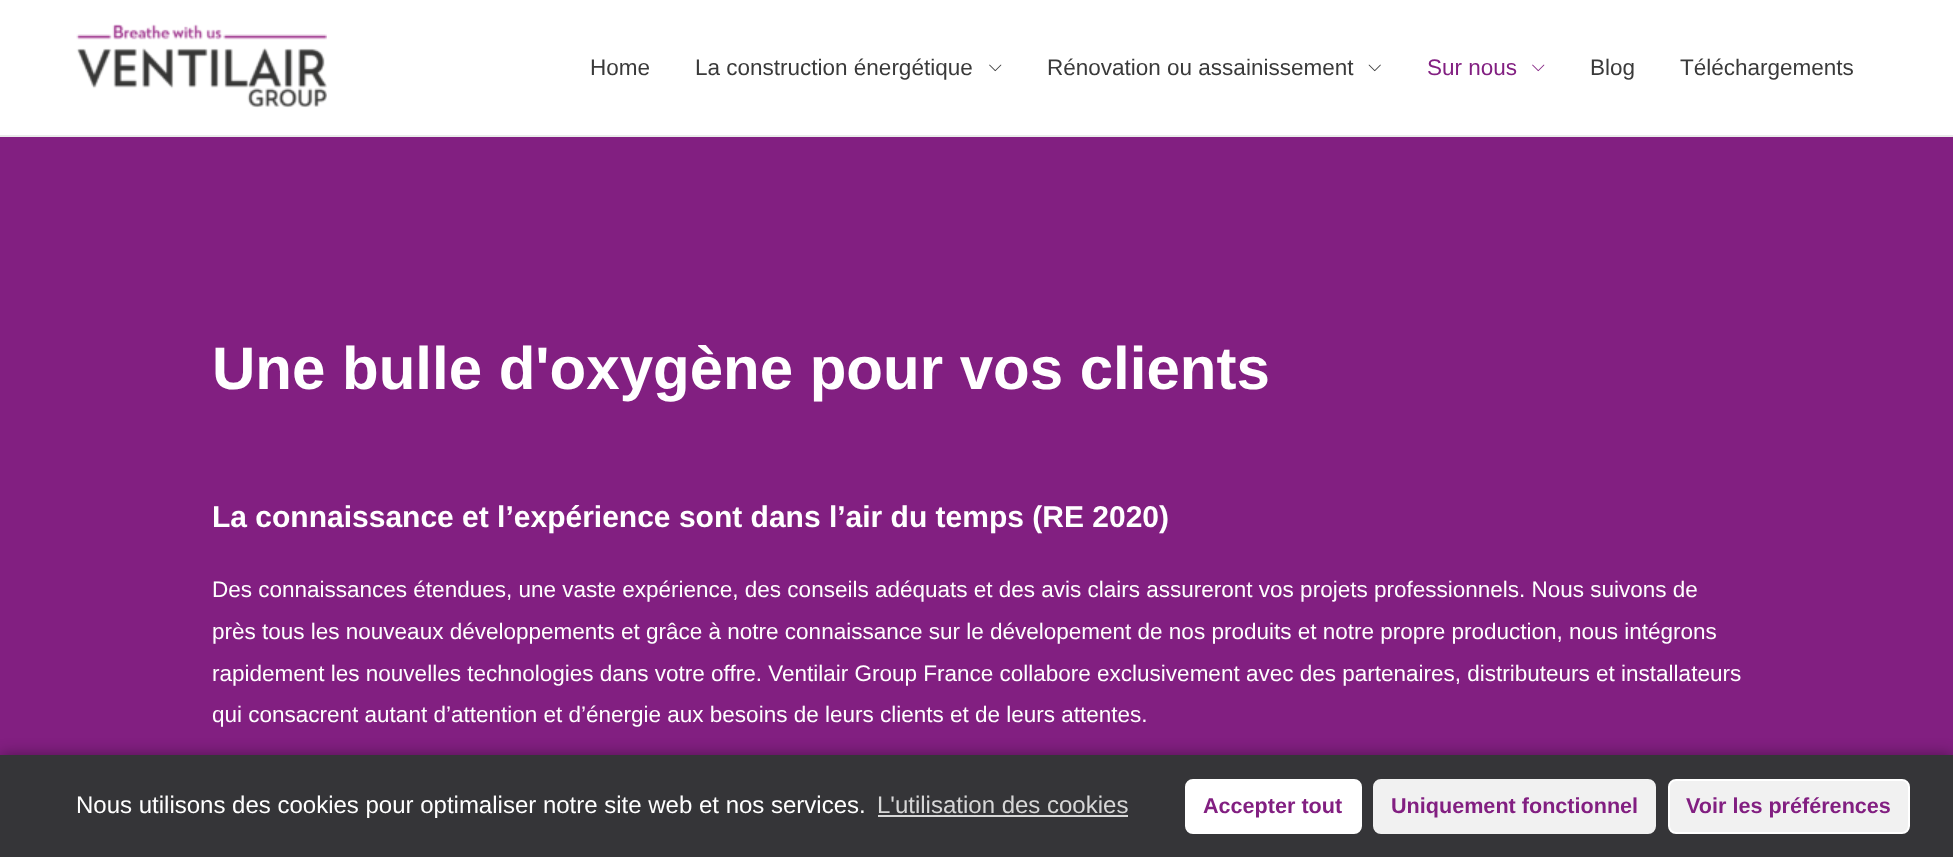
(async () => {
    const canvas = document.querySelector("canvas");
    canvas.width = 1953;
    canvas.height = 857;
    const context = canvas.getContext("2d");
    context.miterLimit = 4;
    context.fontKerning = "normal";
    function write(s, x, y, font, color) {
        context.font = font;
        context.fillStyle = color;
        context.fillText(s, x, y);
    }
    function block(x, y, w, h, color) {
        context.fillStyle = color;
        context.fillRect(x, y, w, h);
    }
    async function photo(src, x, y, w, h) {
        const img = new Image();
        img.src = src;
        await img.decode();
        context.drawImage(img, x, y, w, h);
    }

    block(0, 0, 1953, 857, "rgb(255, 255, 255)");
    block(0, 135, 1953, 2, "rgb(234, 234, 234)");
    await photo("media/1.png", 76, 24, 251, 84);
    write("Home", 590, 75, "22.5px Liberation Sans", "rgb(58, 58, 58)");
    write("La construction énergétique", 695, 75, "22.5px Liberation Sans", "rgb(58, 58, 58)");
    await photo("media/2.png", 989, 64, 13, 8);
    write("Rénovation ou assainissement", 1047, 75, "22.5px Liberation Sans", "rgb(58, 58, 58)");
    await photo("media/3.png", 1368, 64, 13, 8);
    write("Sur nous", 1427, 75, "22.5px Liberation Sans", "rgb(130, 31, 129)");
    await photo("media/4.png", 1532, 64, 13, 8);
    write("Blog", 1590, 75, "22.5px Liberation Sans", "rgb(58, 58, 58)");
    write("Téléchargements", 1680, 75, "22.5px Liberation Sans", "rgb(58, 58, 58)");
    block(0, 137, 1953, 618, "rgb(130, 31, 129)");
    write("Une bulle d'oxygène pour vos clients", 212, 389, "bold 60px Liberation Sans", "rgb(255, 255, 255)");
    write("La connaissance et l’expérience sont dans l’air du temps (RE 2020)", 212, 527, "bold 30px Liberation Sans", "rgb(255, 255, 255)");
    write("Des connaissances étendues, une vaste expérience, des conseils adéquats et des avis clairs assureront vos projets professionnels. Nous suivons de", 212, 597, "22.5px Liberation Sans", "rgb(255, 255, 255)");
    write("près tous les nouveaux développements et grâce à notre connaissance sur le dévelopement de nos produits et notre propre production, nous intégrons", 212, 639, "22.5px Liberation Sans", "rgb(255, 255, 255)");
    write("rapidement les nouvelles technologies dans votre offre. Ventilair Group France collabore exclusivement avec des partenaires, distributeurs et installateurs", 212, 681, "22.5px Liberation Sans", "rgb(255, 255, 255)");
    write("qui consacrent autant d’attention et d’énergie aux besoins de leurs clients et de leurs attentes.", 212, 722, "22.5px Liberation Sans", "rgb(255, 255, 255)");
    context.fillStyle = "rgba(0, 0, 0, 0.4)";
    context.filter = "blur(7.5px)";
    context.beginPath();
    context.rect(0, 755, 1953, 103);
    context.fill();
    context.filter = "none";
    block(0, 755, 1953, 102, "rgb(53, 53, 56)");
    write("Nous utilisons des cookies pour optimaliser notre site web et nos services.", 76, 813, "24px Liberation Sans", "rgb(255, 255, 255)");
    write("L'utilisation des cookies", 877, 813, "24px Liberation Sans", "rgb(215, 215, 215)");
    block(878, 815, 250, 2, "rgb(215, 215, 215)");
    context.fillStyle = "rgb(255, 255, 255)";
    context.beginPath();
    context.roundRect(1186, 780, 175, 53, 7);
    context.fill();
    context.strokeStyle = "rgb(255, 255, 255)";
    context.lineWidth = 2;
    context.stroke();
    write("Accepter tout", 1203, 813, "bold 21.6px Liberation Sans", "rgb(130, 31, 129)");
    context.fillStyle = "rgb(241, 241, 241)";
    context.beginPath();
    context.roundRect(1374, 780, 281, 53, 7);
    context.fill();
    context.strokeStyle = "rgb(241, 241, 241)";
    context.stroke();
    write("Uniquement fonctionnel", 1391, 813, "bold 21.6px Liberation Sans", "rgb(130, 31, 129)");
    context.fillStyle = "rgb(241, 241, 241)";
    context.beginPath();
    context.roundRect(1669, 780, 240, 53, 7);
    context.fill();
    context.strokeStyle = "rgb(255, 255, 255)";
    context.stroke();
    write("Voir les préférences", 1686, 813, "bold 21.6px Liberation Sans", "rgb(130, 31, 129)");
})();
